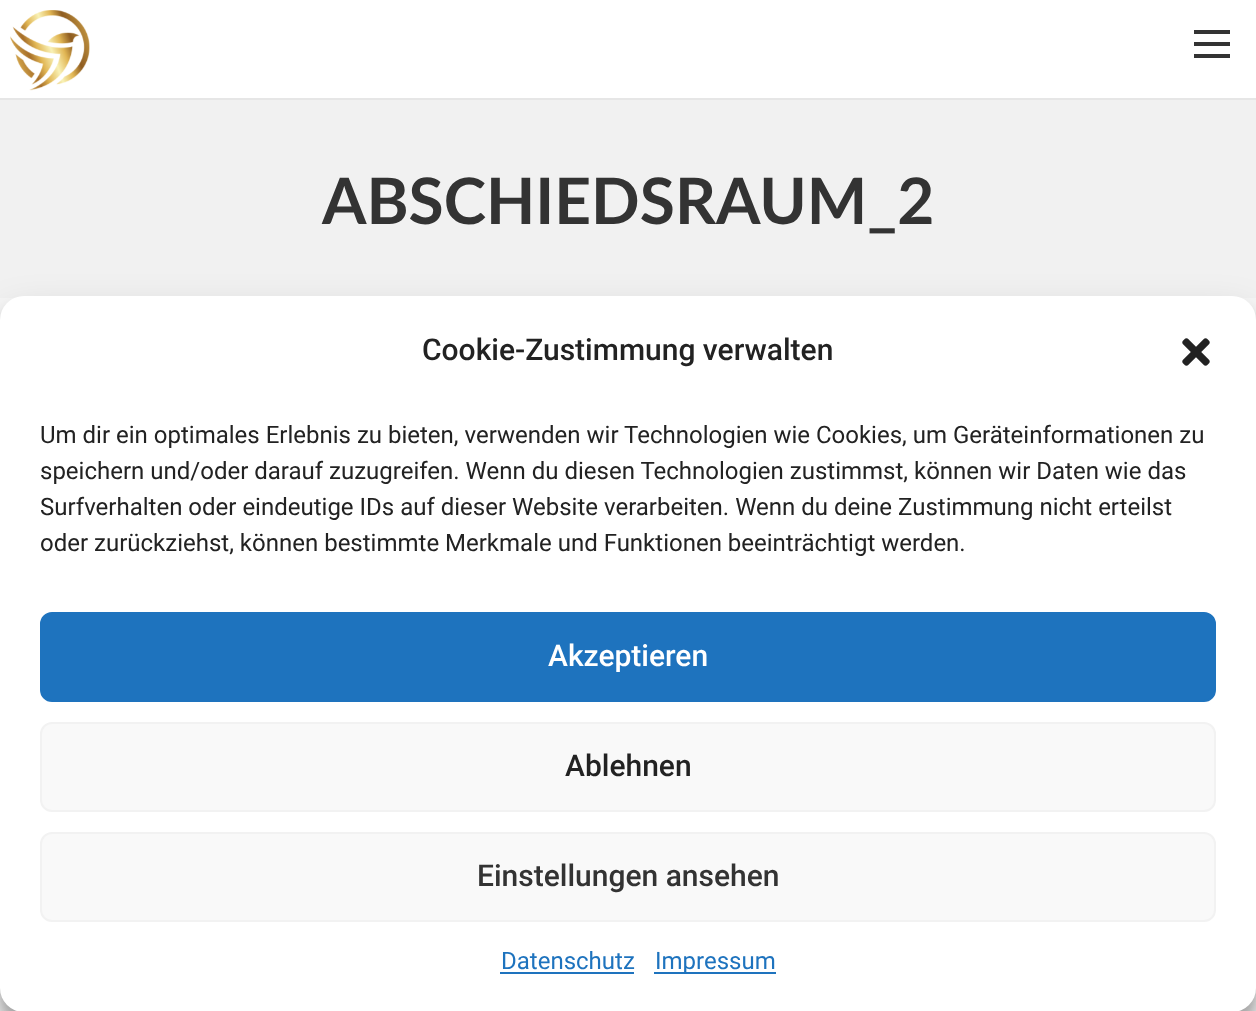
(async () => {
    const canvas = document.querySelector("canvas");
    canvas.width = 1256;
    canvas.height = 1011;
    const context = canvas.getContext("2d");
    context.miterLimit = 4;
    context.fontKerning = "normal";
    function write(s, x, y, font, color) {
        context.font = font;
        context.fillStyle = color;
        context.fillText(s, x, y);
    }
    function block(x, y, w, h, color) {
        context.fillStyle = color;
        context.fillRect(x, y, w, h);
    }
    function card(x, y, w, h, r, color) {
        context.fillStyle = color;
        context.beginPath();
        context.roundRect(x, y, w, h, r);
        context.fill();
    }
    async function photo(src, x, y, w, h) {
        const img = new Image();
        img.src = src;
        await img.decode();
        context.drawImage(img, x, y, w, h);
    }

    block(0, 0, 1256, 1011, "rgb(246, 246, 246)");
    block(0, 0, 1256, 98, "rgb(255, 255, 255)");
    block(0, 98, 1256, 2, "rgb(230, 230, 230)");
    await photo("media/1.png", 10, 10, 80, 81);
    block(1194, 30, 36, 4, "rgb(51, 51, 51)");
    block(1194, 42, 36, 4, "rgb(51, 51, 51)");
    block(1194, 54, 36, 4, "rgb(51, 51, 51)");
    block(0, 100, 1256, 198, "rgb(241, 241, 241)");
    write("ABSCHIEDSRAUM_2", 322, 224, "bold 64px Lato", "rgb(51, 51, 51)");
    context.fillStyle = "rgba(0, 0, 0, 0.23)";
    context.filter = "blur(6px)";
    context.beginPath();
    context.roundRect(0, 308, 1256, 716, 24);
    context.fill();
    context.filter = "none";
    context.fillStyle = "rgba(0, 0, 0, 0.19)";
    context.filter = "blur(20px)";
    context.beginPath();
    context.roundRect(0, 316, 1256, 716, 24);
    context.fill();
    context.filter = "none";
    card(0, 296, 1256, 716, 24, "rgb(255, 255, 255)");
    write("Cookie-Zustimmung verwalten", 422, 360, "500 30px Roboto", "rgb(34, 34, 34)");
    await photo("media/2.png", 1182, 338, 28, 28);
    write("Um dir ein optimales Erlebnis zu bieten, verwenden wir Technologien wie Cookies, um Geräteinformationen zu", 40, 443, "24px Roboto", "rgb(34, 34, 34)");
    write("speichern und/oder darauf zuzugreifen. Wenn du diesen Technologien zustimmst, können wir Daten wie das", 40, 479, "24px Roboto", "rgb(34, 34, 34)");
    write("Surfverhalten oder eindeutige IDs auf dieser Website verarbeiten. Wenn du deine Zustimmung nicht erteilst", 40, 515, "24px Roboto", "rgb(34, 34, 34)");
    write("oder zurückziehst, können bestimmte Merkmale und Funktionen beeinträchtigt werden.", 40, 551, "24px Roboto", "rgb(34, 34, 34)");
    context.fillStyle = "rgb(30, 115, 190)";
    context.beginPath();
    context.roundRect(41, 613, 1174, 88, 11);
    context.fill();
    context.strokeStyle = "rgb(30, 115, 190)";
    context.lineWidth = 2;
    context.stroke();
    write("Akzeptieren", 548, 666, "500 30px Roboto", "rgb(255, 255, 255)");
    context.fillStyle = "rgb(249, 249, 249)";
    context.beginPath();
    context.roundRect(41, 723, 1174, 88, 11);
    context.fill();
    context.strokeStyle = "rgb(242, 242, 242)";
    context.stroke();
    write("Ablehnen", 565, 776, "500 30px Roboto", "rgb(34, 34, 34)");
    context.fillStyle = "rgb(249, 249, 249)";
    context.beginPath();
    context.roundRect(41, 833, 1174, 88, 11);
    context.fill();
    context.stroke();
    write("Einstellungen ansehen", 477, 886, "500 30px Roboto", "rgb(51, 51, 51)");
    write("Datenschutz", 501, 969, "24px Roboto", "rgb(30, 115, 190)");
    block(500, 972, 134, 2, "rgb(30, 115, 190)");
    block(654, 972, 122, 2, "rgb(30, 115, 190)");
    write("Impressum", 655, 969, "24px Roboto", "rgb(30, 115, 190)");
})();
